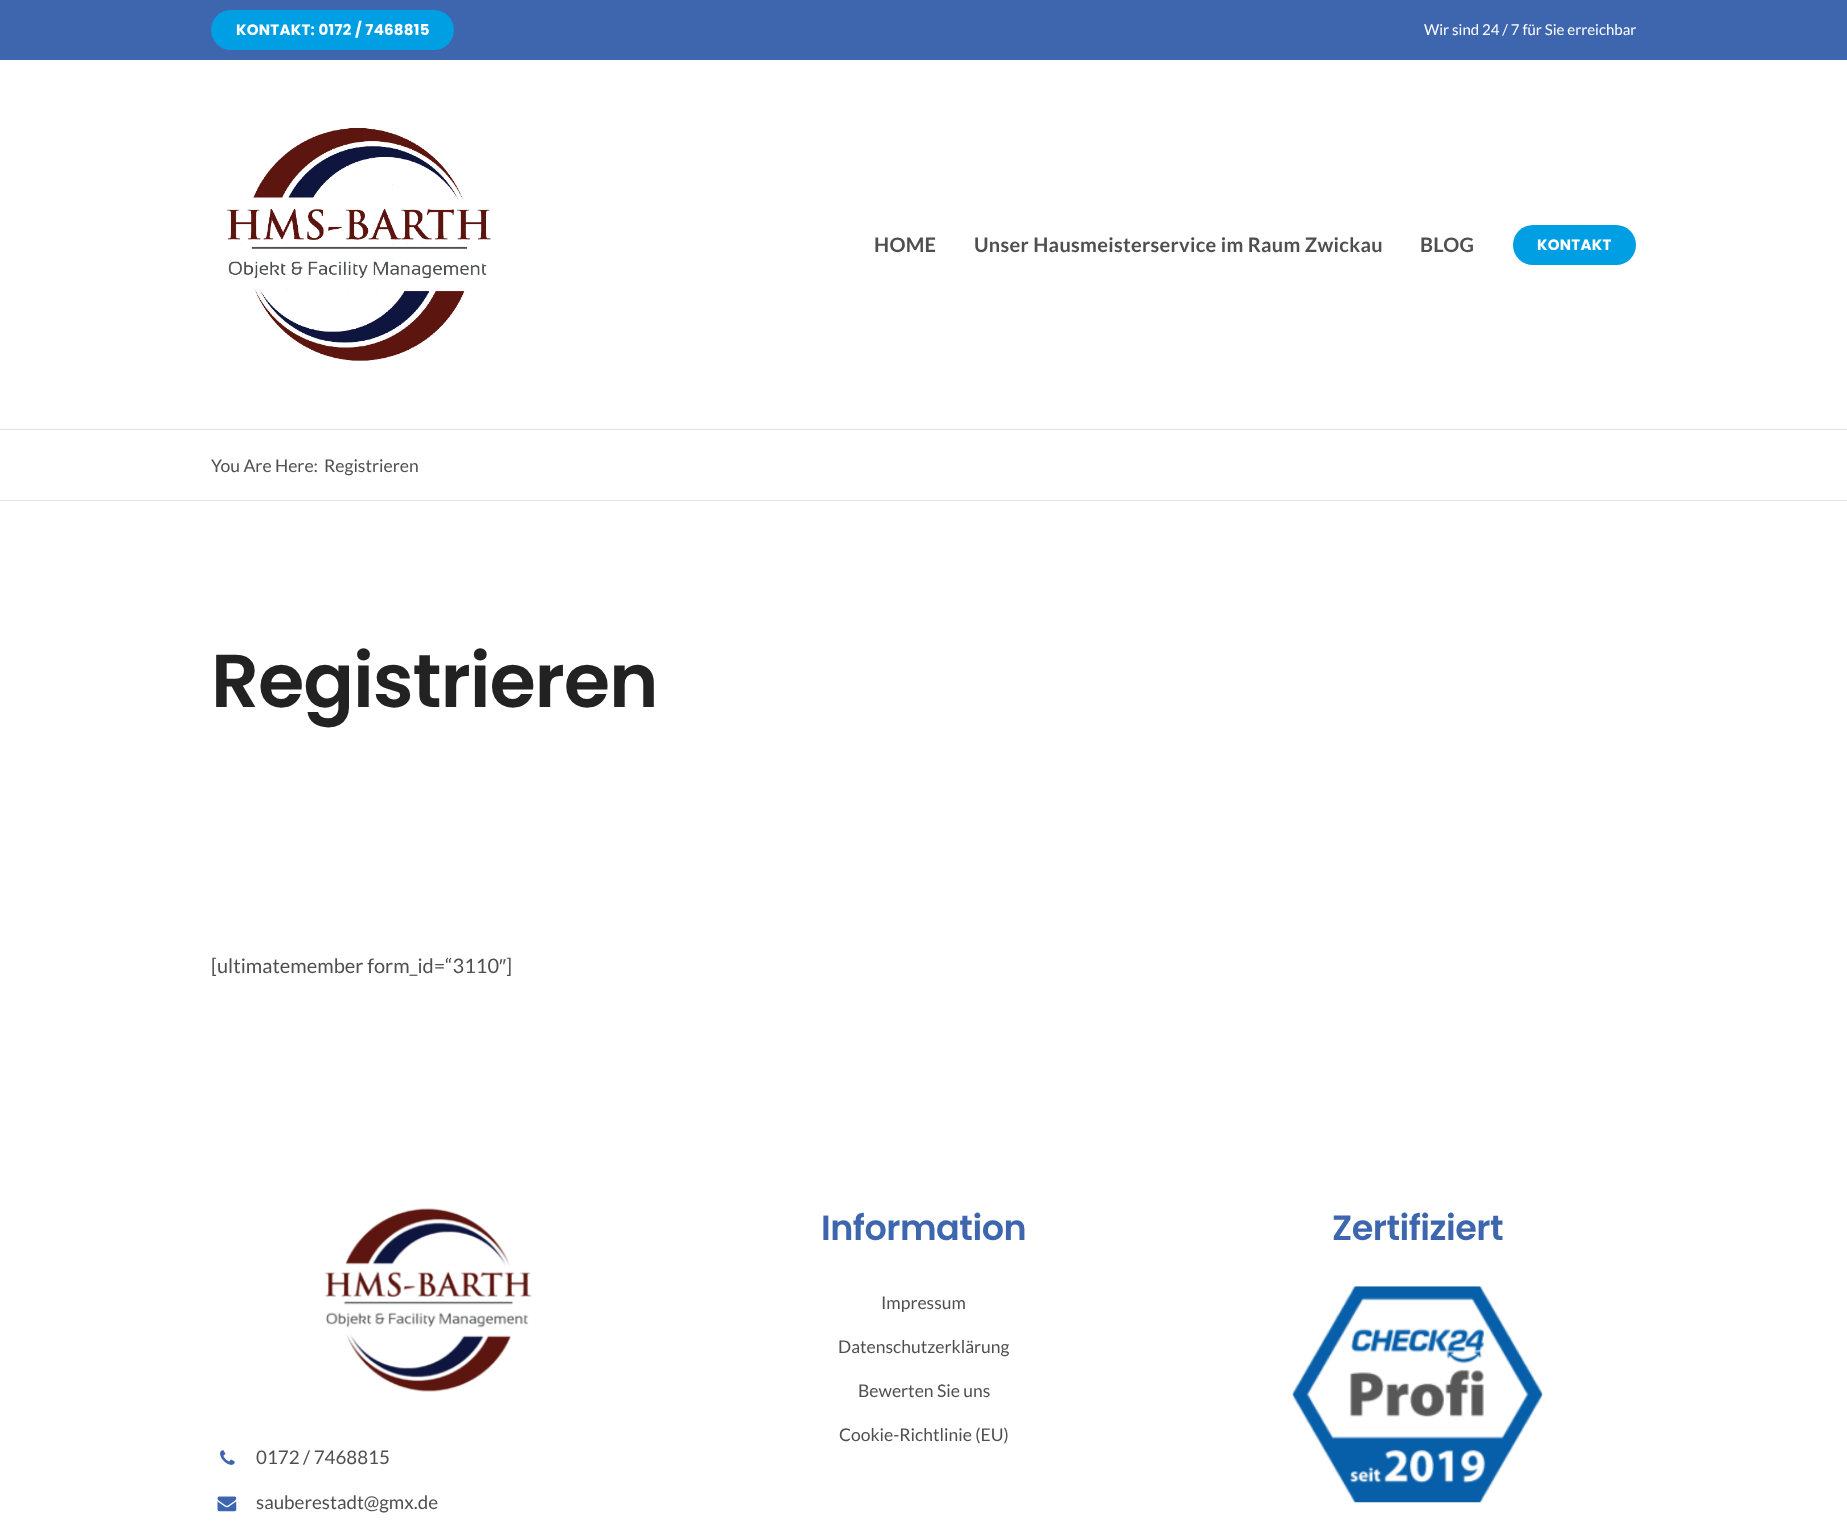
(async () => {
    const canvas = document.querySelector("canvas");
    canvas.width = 1847;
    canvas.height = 1538;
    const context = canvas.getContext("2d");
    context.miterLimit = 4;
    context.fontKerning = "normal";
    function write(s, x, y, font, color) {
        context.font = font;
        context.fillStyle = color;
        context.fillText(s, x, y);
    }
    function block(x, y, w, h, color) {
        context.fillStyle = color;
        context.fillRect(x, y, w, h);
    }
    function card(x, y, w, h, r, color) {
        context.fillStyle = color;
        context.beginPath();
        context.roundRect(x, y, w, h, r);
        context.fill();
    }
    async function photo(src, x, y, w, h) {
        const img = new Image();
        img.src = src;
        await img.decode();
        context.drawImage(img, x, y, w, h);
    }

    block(0, 0, 1847, 1538, "rgb(255, 255, 255)");
    block(0, 0, 1847, 60, "rgb(61, 102, 174)");
    card(211, 10, 243, 40, 20, "rgb(0, 159, 227)");
    context.letterSpacing = "0.25px";
    write("KONTAKT: 0172 / 7468815", 236, 35, "bold 15px Poppins", "rgb(255, 255, 255)");
    context.letterSpacing = "0px";
    write("Wir sind 24 / 7 für Sie erreichbar", 1424, 35, "15px Lato", "rgb(255, 255, 255)");
    await photo("media/1.png", 227, 127, 264, 234);
    context.letterSpacing = "0.3px";
    write("HOME", 874, 252, "bold 20px Lato", "rgb(79, 79, 79)");
    write("Unser Hausmeisterservice im Raum Zwickau", 974, 252, "bold 20px Lato", "rgb(79, 79, 79)");
    write("BLOG", 1420, 252, "bold 20px Lato", "rgb(79, 79, 79)");
    card(1513, 225, 123, 40, 20, "rgb(0, 159, 227)");
    context.letterSpacing = "0.25px";
    write("KONTAKT", 1537, 250, "bold 15px Poppins", "rgb(255, 255, 255)");
    block(0, 429, 1847, 1, "rgb(226, 226, 226)");
    block(0, 500, 1847, 1, "rgb(226, 226, 226)");
    context.letterSpacing = "0px";
    write("You Are Here:", 211, 472, "17.5px Lato", "rgb(79, 79, 79)");
    write("Registrieren", 324, 472, "17.5px Lato", "rgb(79, 79, 79)");
    context.letterSpacing = "-1.1px";
    write("Registrieren", 211, 707, "600 75px Poppins", "rgb(34, 34, 34)");
    context.letterSpacing = "0px";
    write("[ultimatemember form_id=“3110", 211, 973, "20px Lato", "rgb(79, 79, 79)");
    write("″", 499, 973, "20px Liberation Sans", "rgb(79, 79, 79)");
    write("]", 506, 973, "20px Lato", "rgb(79, 79, 79)");
    context.letterSpacing = "-0.5px";
    write("Information", 821, 1240, "600 35px Poppins", "rgb(61, 102, 174)");
    context.letterSpacing = "0px";
    write("Impressum", 881, 1309, "17.5px Lato", "rgb(79, 79, 79)");
    write("Datenschutzerklärung", 838, 1353, "17.5px Lato", "rgb(79, 79, 79)");
    write("Bewerten Sie uns", 858, 1397, "17.5px Lato", "rgb(79, 79, 79)");
    write("Cookie-Richtlinie (EU)", 839, 1441, "17.5px Lato", "rgb(79, 79, 79)");
    context.letterSpacing = "-0.5px";
    write("Zertifiziert", 1332, 1240, "600 35px Poppins", "rgb(61, 102, 174)");
    await photo("media/2.png", 1292, 1286, 251, 217);
    await photo("media/3.png", 325, 1208, 207, 184);
    await photo("media/4.png", 220, 1450, 15, 15);
    context.letterSpacing = "0px";
    write("0172 / 7468815", 256, 1464, "18.75px Lato", "rgb(79, 79, 79)");
    await photo("media/5.png", 217, 1496, 20, 16);
    write("sauberestadt@gmx.de", 256, 1509, "18.75px Lato", "rgb(79, 79, 79)");
})();
